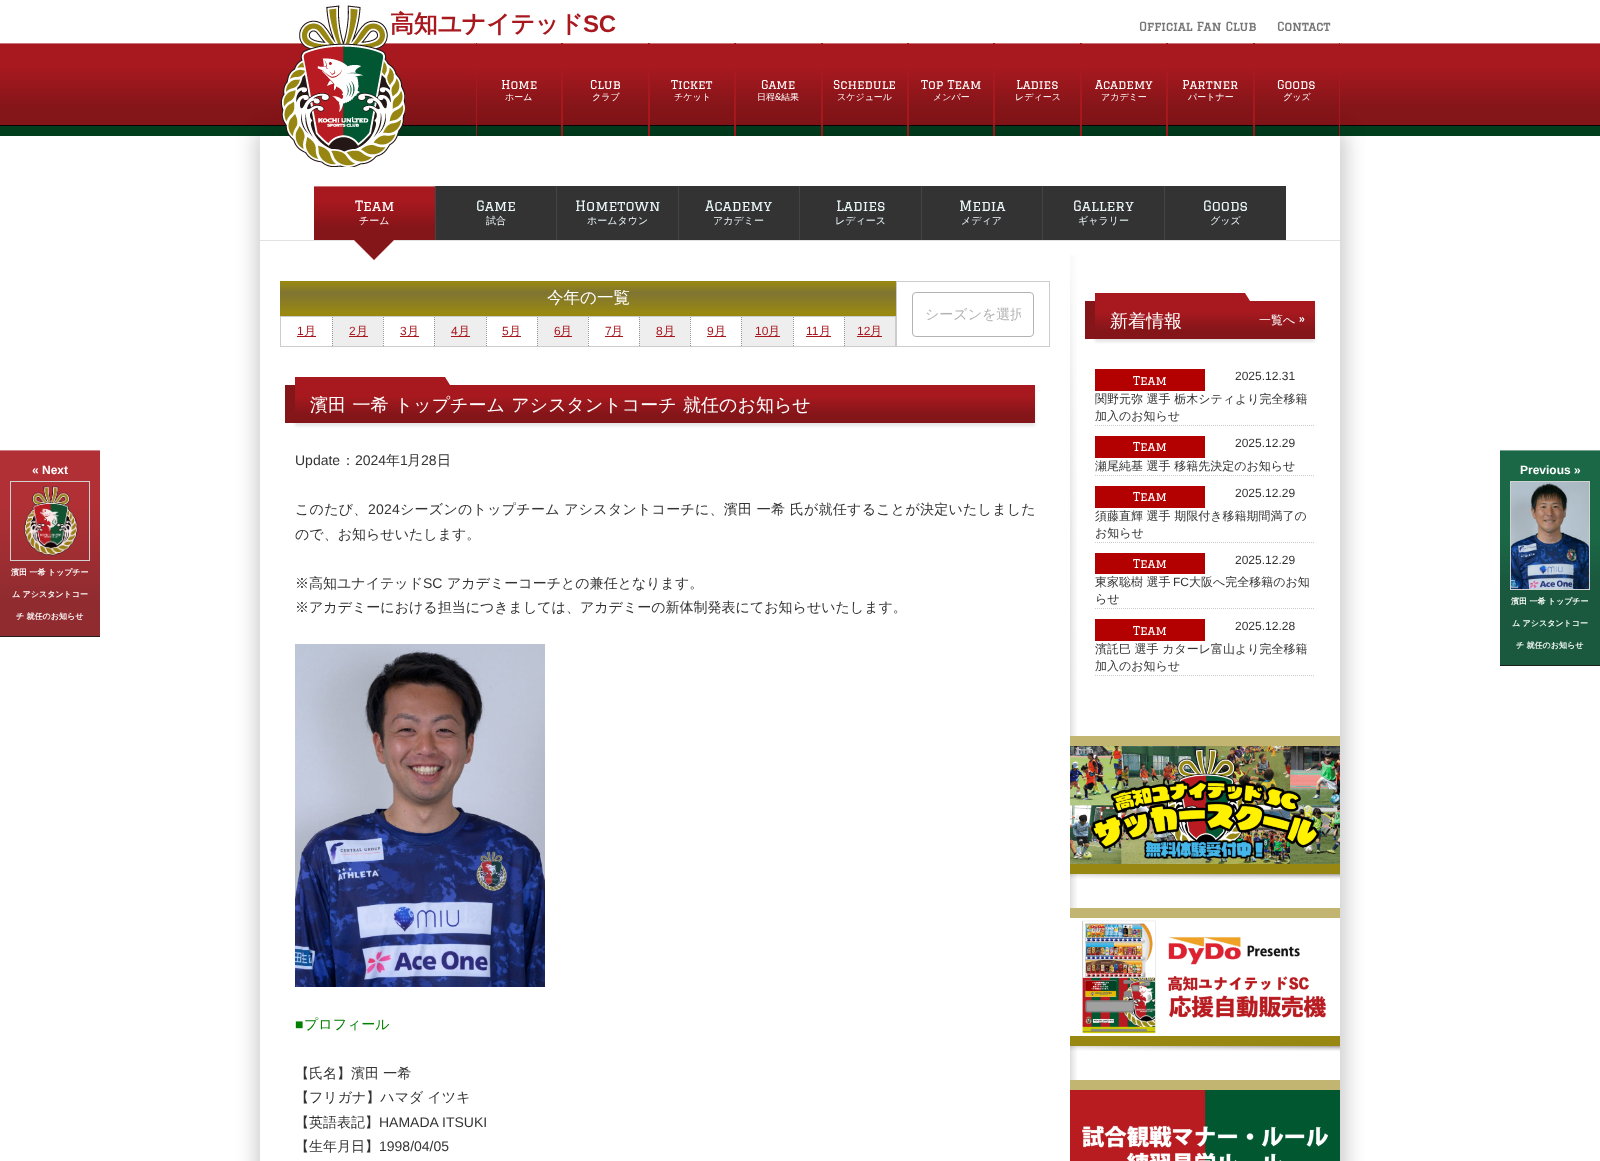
(async () => {
    const canvas = document.querySelector("canvas");
    canvas.width = 1600;
    canvas.height = 1161;
    const context = canvas.getContext("2d");
    context.miterLimit = 4;
    context.fontKerning = "normal";
    function write(s, x, y, font, color) {
        context.font = font;
        context.fillStyle = color;
        context.fillText(s, x, y);
    }
    function block(x, y, w, h, color) {
        context.fillStyle = color;
        context.fillRect(x, y, w, h);
    }
    async function photo(src, x, y, w, h) {
        const img = new Image();
        img.src = src;
        await img.decode();
        context.drawImage(img, x, y, w, h);
    }
    let gradient;

    block(0, 0, 1600, 1161, "rgb(255, 255, 255)");
    gradient = context.createLinearGradient(800, 43, 800, 126);
    gradient.addColorStop(0.28, "rgb(168, 25, 31)");
    gradient.addColorStop(0.78, "rgb(132, 21, 25)");
    context.fillStyle = gradient;
    context.fillRect(0, 44, 1600, 81);
    block(0, 43, 1600, 1, "rgb(203, 117, 121)");
    block(0, 125, 1600, 1, "rgb(13, 2, 3)");
    block(0, 126, 1600, 10, "rgb(0, 62, 30)");
    block(561, 43, 2, 93, "rgb(168, 25, 31)");
    block(476, 43, 1, 93, "rgb(168, 25, 31)");
    block(648, 43, 2, 93, "rgb(168, 25, 31)");
    block(734, 43, 2, 93, "rgb(168, 25, 31)");
    block(821, 43, 2, 93, "rgb(168, 25, 31)");
    block(907, 43, 2, 93, "rgb(168, 25, 31)");
    block(993, 43, 2, 93, "rgb(168, 25, 31)");
    block(1080, 43, 2, 93, "rgb(168, 25, 31)");
    block(1166, 43, 2, 93, "rgb(168, 25, 31)");
    block(1253, 43, 2, 93, "rgb(168, 25, 31)");
    block(1339, 43, 1, 93, "rgb(168, 25, 31)");
    context.save();
    context.beginPath();
    context.moveTo(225, 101);
    context.lineTo(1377, 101);
    context.lineTo(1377, 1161);
    context.lineTo(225, 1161);
    context.closePath();
    context.moveTo(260, 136);
    context.lineTo(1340, 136);
    context.lineTo(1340, 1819);
    context.lineTo(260, 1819);
    context.closePath();
    context.clip("evenodd");
    context.fillStyle = "rgba(0, 0, 0, 0.2)";
    context.filter = "blur(10px)";
    context.beginPath();
    context.rect(256, 132, 1090, 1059);
    context.fill();
    context.filter = "none";
    context.restore();
    await photo("media/1.png", 280, 5, 125, 162);
    context.letterSpacing = "-0.25px";
    write("高知ユナイテッド", 390, 32, "bold 24px WenQuanYi Zen Hei", "rgb(168, 25, 31)");
    write("SC", 583, 32, "bold 24px Liberation Sans", "rgb(168, 25, 31)");
    context.letterSpacing = "0px";
    write("Official Fan Club", 1139, 31, "bold 12px Graduate", "rgb(119, 119, 119)");
    write("Contact", 1277, 31, "bold 12px Graduate", "rgb(119, 119, 119)");
    write("Home", 501, 89, "12px Graduate", "rgb(255, 255, 255)");
    write("ホーム", 505, 100, "500 9px WenQuanYi Zen Hei", "rgb(255, 255, 255)");
    write("Club", 590, 89, "12px Graduate", "rgb(255, 255, 255)");
    write("クラブ", 592, 100, "500 9px WenQuanYi Zen Hei", "rgb(255, 255, 255)");
    write("Ticket", 671, 89, "12px Graduate", "rgb(255, 255, 255)");
    write("チケット", 674, 100, "500 9px WenQuanYi Zen Hei", "rgb(255, 255, 255)");
    write("Game", 761, 89, "12px Graduate", "rgb(255, 255, 255)");
    write("日程", 757, 100, "500 9px WenQuanYi Zen Hei", "rgb(255, 255, 255)");
    write("&", 775, 100, "9px Graduate", "rgb(255, 255, 255)");
    write("結果", 781, 100, "500 9px WenQuanYi Zen Hei", "rgb(255, 255, 255)");
    write("Schedule", 833, 89, "12px Graduate", "rgb(255, 255, 255)");
    write("スケジュール", 837, 100, "500 9px WenQuanYi Zen Hei", "rgb(255, 255, 255)");
    write("Top Team", 921, 89, "12px Graduate", "rgb(255, 255, 255)");
    write("メンバー", 933, 100, "500 9px WenQuanYi Zen Hei", "rgb(255, 255, 255)");
    write("Ladies", 1016, 89, "12px Graduate", "rgb(255, 255, 255)");
    write("レディース", 1015, 100, "500 9px WenQuanYi Zen Hei", "rgb(255, 255, 255)");
    write("Academy", 1095, 89, "12px Graduate", "rgb(255, 255, 255)");
    write("アカデミー", 1101, 100, "500 9px WenQuanYi Zen Hei", "rgb(255, 255, 255)");
    write("Partner", 1182, 89, "12px Graduate", "rgb(255, 255, 255)");
    write("パートナー", 1188, 100, "500 9px WenQuanYi Zen Hei", "rgb(255, 255, 255)");
    write("Goods", 1277, 89, "12px Graduate", "rgb(255, 255, 255)");
    write("グッズ", 1283, 100, "500 9px WenQuanYi Zen Hei", "rgb(255, 255, 255)");
    block(435, 186, 1, 54, "rgb(68, 68, 68)");
    gradient = context.createLinearGradient(375, 186, 375, 240);
    gradient.addColorStop(0.28, "rgb(168, 25, 31)");
    gradient.addColorStop(0.78, "rgb(132, 21, 25)");
    context.fillStyle = gradient;
    context.fillRect(314, 187, 121, 53);
    block(314, 186, 121, 1, "rgb(203, 117, 121)");
    write("Team", 355, 211, "14px Graduate", "rgb(255, 255, 255)");
    write("チーム", 359, 224, "500 10px WenQuanYi Zen Hei", "rgb(255, 255, 255)");
    block(260, 240, 1080, 1, "rgb(225, 225, 225)");
    context.fillStyle = "rgb(255, 230, 231)";
    context.beginPath();
    context.moveTo(353, 240);
    context.lineTo(395, 240);
    context.lineTo(374, 261);
    context.closePath();
    context.fill();
    context.fillStyle = "rgb(132, 21, 25)";
    context.beginPath();
    context.moveTo(354, 240);
    context.lineTo(394, 240);
    context.lineTo(374, 260);
    context.closePath();
    context.fill();
    block(556, 186, 1, 54, "rgb(68, 68, 68)");
    block(436, 186, 120, 54, "rgb(51, 51, 51)");
    write("Game", 476, 211, "14px Graduate", "rgb(235, 247, 250)");
    write("試合", 486, 224, "500 10px WenQuanYi Zen Hei", "rgb(235, 247, 250)");
    block(678, 186, 1, 54, "rgb(68, 68, 68)");
    block(557, 186, 121, 54, "rgb(51, 51, 51)");
    write("Hometown", 575, 211, "14px Graduate", "rgb(235, 247, 250)");
    write("ホームタウン", 587, 224, "500 10px WenQuanYi Zen Hei", "rgb(235, 247, 250)");
    block(799, 186, 1, 54, "rgb(68, 68, 68)");
    block(679, 186, 120, 54, "rgb(51, 51, 51)");
    write("Academy", 705, 211, "14px Graduate", "rgb(235, 247, 250)");
    write("アカデミー", 713, 224, "500 10px WenQuanYi Zen Hei", "rgb(235, 247, 250)");
    block(921, 186, 1, 54, "rgb(68, 68, 68)");
    block(800, 186, 121, 54, "rgb(51, 51, 51)");
    write("Ladies", 836, 211, "14px Graduate", "rgb(235, 247, 250)");
    write("レディース", 835, 224, "500 10px WenQuanYi Zen Hei", "rgb(235, 247, 250)");
    block(1042, 186, 1, 54, "rgb(68, 68, 68)");
    block(922, 186, 120, 54, "rgb(51, 51, 51)");
    write("Media", 959, 211, "14px Graduate", "rgb(235, 247, 250)");
    write("メディア", 961, 224, "500 10px WenQuanYi Zen Hei", "rgb(235, 247, 250)");
    block(1164, 186, 1, 54, "rgb(68, 68, 68)");
    block(1043, 186, 121, 54, "rgb(51, 51, 51)");
    write("Gallery", 1073, 211, "14px Graduate", "rgb(235, 247, 250)");
    write("ギャラリー", 1078, 224, "500 10px WenQuanYi Zen Hei", "rgb(235, 247, 250)");
    block(1165, 186, 121, 54, "rgb(51, 51, 51)");
    write("Goods", 1203, 211, "14px Graduate", "rgb(235, 247, 250)");
    write("グッズ", 1210, 224, "500 10px WenQuanYi Zen Hei", "rgb(235, 247, 250)");
    gradient = context.createLinearGradient(588, 281, 588, 316);
    gradient.addColorStop(0.04, "rgb(152, 136, 18)");
    gradient.addColorStop(0.34, "rgb(127, 116, 50)");
    gradient.addColorStop(0.9, "rgb(152, 136, 18)");
    context.fillStyle = gradient;
    context.fillRect(280, 281, 616, 35);
    write("今年の一覧", 547, 303, "500 16.5px WenQuanYi Zen Hei", "rgb(255, 255, 255)");
    context.strokeStyle = "rgb(204, 204, 204)";
    context.strokeRect(280.5, 316.5, 615, 30);
    write("1", 297, 335, "12px Liberation Sans", "rgb(168, 25, 31)");
    block(297, 336, 19, 1, "rgb(168, 25, 31)");
    write("月", 304, 335, "500 12px WenQuanYi Zen Hei", "rgb(168, 25, 31)");
    block(332, 317, 51, 29, "rgb(238, 238, 238)");
    context.beginPath();
    context.moveTo(332.5, 317);
    context.lineTo(332.5, 346);
    context.strokeStyle = "rgb(153, 153, 153)";
    context.setLineDash([1, 1]);
    context.stroke();
    write("2", 349, 335, "12px Liberation Sans", "rgb(168, 25, 31)");
    block(349, 336, 19, 1, "rgb(168, 25, 31)");
    write("月", 356, 335, "500 12px WenQuanYi Zen Hei", "rgb(168, 25, 31)");
    context.beginPath();
    context.moveTo(383.5, 317);
    context.lineTo(383.5, 346);
    context.stroke();
    write("3", 400, 335, "12px Liberation Sans", "rgb(168, 25, 31)");
    block(400, 336, 19, 1, "rgb(168, 25, 31)");
    write("月", 407, 335, "500 12px WenQuanYi Zen Hei", "rgb(168, 25, 31)");
    block(434, 317, 52, 29, "rgb(238, 238, 238)");
    context.beginPath();
    context.moveTo(434.5, 317);
    context.lineTo(434.5, 346);
    context.stroke();
    write("4", 451, 335, "12px Liberation Sans", "rgb(168, 25, 31)");
    block(451, 336, 19, 1, "rgb(168, 25, 31)");
    write("月", 458, 335, "500 12px WenQuanYi Zen Hei", "rgb(168, 25, 31)");
    context.beginPath();
    context.moveTo(486.5, 317);
    context.lineTo(486.5, 346);
    context.stroke();
    write("5", 502, 335, "12px Liberation Sans", "rgb(168, 25, 31)");
    block(502, 336, 19, 1, "rgb(168, 25, 31)");
    write("月", 509, 335, "500 12px WenQuanYi Zen Hei", "rgb(168, 25, 31)");
    block(537, 317, 51, 29, "rgb(238, 238, 238)");
    context.beginPath();
    context.moveTo(537.5, 317);
    context.lineTo(537.5, 346);
    context.stroke();
    write("6", 554, 335, "12px Liberation Sans", "rgb(168, 25, 31)");
    block(554, 336, 18, 1, "rgb(168, 25, 31)");
    write("月", 560, 335, "500 12px WenQuanYi Zen Hei", "rgb(168, 25, 31)");
    context.beginPath();
    context.moveTo(588.5, 317);
    context.lineTo(588.5, 346);
    context.stroke();
    write("7", 605, 335, "12px Liberation Sans", "rgb(168, 25, 31)");
    block(605, 336, 18, 1, "rgb(168, 25, 31)");
    write("月", 611, 335, "500 12px WenQuanYi Zen Hei", "rgb(168, 25, 31)");
    block(639, 317, 51, 29, "rgb(238, 238, 238)");
    context.beginPath();
    context.moveTo(639.5, 317);
    context.lineTo(639.5, 346);
    context.stroke();
    write("8", 656, 335, "12px Liberation Sans", "rgb(168, 25, 31)");
    block(656, 336, 19, 1, "rgb(168, 25, 31)");
    write("月", 663, 335, "500 12px WenQuanYi Zen Hei", "rgb(168, 25, 31)");
    context.beginPath();
    context.moveTo(690.5, 317);
    context.lineTo(690.5, 346);
    context.stroke();
    write("9", 707, 335, "12px Liberation Sans", "rgb(168, 25, 31)");
    block(707, 336, 19, 1, "rgb(168, 25, 31)");
    write("月", 714, 335, "500 12px WenQuanYi Zen Hei", "rgb(168, 25, 31)");
    block(741, 317, 52, 29, "rgb(238, 238, 238)");
    context.beginPath();
    context.moveTo(741.5, 317);
    context.lineTo(741.5, 346);
    context.stroke();
    write("10", 755, 335, "12px Liberation Sans", "rgb(168, 25, 31)");
    block(755, 336, 25, 1, "rgb(168, 25, 31)");
    write("月", 768, 335, "500 12px WenQuanYi Zen Hei", "rgb(168, 25, 31)");
    context.beginPath();
    context.moveTo(793.5, 317);
    context.lineTo(793.5, 346);
    context.stroke();
    write("11", 806, 335, "12px Liberation Sans", "rgb(168, 25, 31)");
    block(806, 336, 25, 1, "rgb(168, 25, 31)");
    write("月", 819, 335, "500 12px WenQuanYi Zen Hei", "rgb(168, 25, 31)");
    block(844, 317, 51, 29, "rgb(238, 238, 238)");
    context.beginPath();
    context.moveTo(844.5, 317);
    context.lineTo(844.5, 346);
    context.stroke();
    write("12", 857, 335, "12px Liberation Sans", "rgb(168, 25, 31)");
    block(857, 336, 25, 1, "rgb(168, 25, 31)");
    write("月", 870, 335, "500 12px WenQuanYi Zen Hei", "rgb(168, 25, 31)");
    context.strokeStyle = "rgb(204, 204, 204)";
    context.setLineDash([]);
    context.strokeRect(896.5, 281.5, 153, 65);
    context.beginPath();
    context.roundRect(912.5, 292.5, 121, 44, 3.5);
    context.strokeStyle = "rgb(179, 179, 179)";
    context.stroke();
    context.save();
    context.beginPath();
    context.rect(925, 306, 96, 16);
    context.clip();
    write("シーズンを選択", 925, 319, "500 14px WenQuanYi Zen Hei", "rgb(179, 179, 179)");
    context.restore();
    context.fillStyle = "rgba(0, 0, 0, 0.1)";
    context.filter = "blur(1.5px)";
    context.beginPath();
    context.rect(295, 388, 740, 38);
    context.fill();
    context.filter = "none";
    block(285, 385, 10, 38, "rgb(132, 21, 25)");
    gradient = context.createLinearGradient(665, 385, 665, 423);
    gradient.addColorStop(0.28, "rgb(168, 25, 31)");
    gradient.addColorStop(0.78, "rgb(132, 21, 25)");
    context.fillStyle = gradient;
    context.fillRect(295, 385, 740, 38);
    context.fillStyle = "rgb(168, 25, 31)";
    context.beginPath();
    context.moveTo(450, 385);
    context.lineTo(295, 385);
    context.lineTo(295, 377);
    context.lineTo(445, 377);
    context.closePath();
    context.fill();
    context.wordSpacing = "1px";
    write("濱田 一希 トップチーム アシスタントコーチ 就任のお知らせ", 310, 411, "500 18px WenQuanYi Zen Hei", "rgb(255, 255, 255)");
    context.wordSpacing = "0px";
    write("Update", 295, 465, "14px Liberation Sans", "rgb(51, 51, 51)");
    write("：", 341, 465, "500 14px WenQuanYi Zen Hei", "rgb(51, 51, 51)");
    write("2024", 355, 465, "14px Liberation Sans", "rgb(51, 51, 51)");
    write("年", 386, 465, "500 14px WenQuanYi Zen Hei", "rgb(51, 51, 51)");
    write("1", 400, 465, "14px Liberation Sans", "rgb(51, 51, 51)");
    write("月", 407, 465, "500 14px WenQuanYi Zen Hei", "rgb(51, 51, 51)");
    write("28", 421, 465, "14px Liberation Sans", "rgb(51, 51, 51)");
    write("日", 437, 465, "500 14px WenQuanYi Zen Hei", "rgb(51, 51, 51)");
    context.letterSpacing = "0.25px";
    write("このたび、", 295, 514, "500 14px WenQuanYi Zen Hei", "rgb(51, 51, 51)");
    write("2024", 368, 514, "14px Liberation Sans", "rgb(51, 51, 51)");
    write("シーズンのトップチーム アシスタントコーチに、濱田 一希 氏が就任することが決定いたしました", 400, 514, "500 14px WenQuanYi Zen Hei", "rgb(51, 51, 51)");
    context.letterSpacing = "0px";
    write("ので、お知らせいたします。", 295, 539, "500 14px WenQuanYi Zen Hei", "rgb(51, 51, 51)");
    write("※高知ユナイテッド", 295, 588, "500 14px WenQuanYi Zen Hei", "rgb(51, 51, 51)");
    write("SC", 423, 588, "14px Liberation Sans", "rgb(51, 51, 51)");
    write("アカデミーコーチとの兼任となります。", 447, 588, "500 14px WenQuanYi Zen Hei", "rgb(51, 51, 51)");
    write("※アカデミーにおける担当につきましては、アカデミーの新体制発表にてお知らせいたします。", 295, 612, "500 14px WenQuanYi Zen Hei", "rgb(51, 51, 51)");
    await photo("media/2.png", 295, 644, 250, 343);
    write("■", 295, 1029, "14px Liberation Sans", "rgb(0, 128, 0)");
    write("プロフィール", 304, 1029, "500 14px WenQuanYi Zen Hei", "rgb(0, 128, 0)");
    write("【氏名】濱田 一希", 295, 1078, "500 14px WenQuanYi Zen Hei", "rgb(51, 51, 51)");
    write("【フリガナ】ハマダ イツキ", 295, 1102, "500 14px WenQuanYi Zen Hei", "rgb(51, 51, 51)");
    write("【英語表記】", 295, 1127, "500 14px WenQuanYi Zen Hei", "rgb(51, 51, 51)");
    write("HAMADA ITSUKI", 379, 1127, "14px Liberation Sans", "rgb(51, 51, 51)");
    write("【生年月日】", 295, 1151, "500 14px WenQuanYi Zen Hei", "rgb(51, 51, 51)");
    write("1998/04/05", 379, 1151, "14px Liberation Sans", "rgb(51, 51, 51)");
    await photo("media/3.png", 1070, 255, 7, 825);
    context.fillStyle = "rgba(0, 0, 0, 0.1)";
    context.filter = "blur(1.5px)";
    context.beginPath();
    context.rect(1095, 304, 220, 38);
    context.fill();
    context.filter = "none";
    block(1085, 301, 10, 38, "rgb(132, 21, 25)");
    gradient = context.createLinearGradient(1205, 301, 1205, 339);
    gradient.addColorStop(0.28, "rgb(168, 25, 31)");
    gradient.addColorStop(0.78, "rgb(132, 21, 25)");
    context.fillStyle = gradient;
    context.fillRect(1095, 301, 220, 38);
    context.fillStyle = "rgb(168, 25, 31)";
    context.beginPath();
    context.moveTo(1250, 301);
    context.lineTo(1095, 301);
    context.lineTo(1095, 293);
    context.lineTo(1245, 293);
    context.closePath();
    context.fill();
    write("新着情報", 1110, 327, "500 18px WenQuanYi Zen Hei", "rgb(255, 255, 255)");
    write("一覧へ", 1259, 324, "500 12px WenQuanYi Zen Hei", "rgb(255, 255, 255)");
    write("»", 1299, 324, "12px Graduate", "rgb(255, 255, 255)");
    context.beginPath();
    context.moveTo(1095, 425.5);
    context.lineTo(1315, 425.5);
    context.strokeStyle = "rgb(204, 204, 204)";
    context.setLineDash([1, 1]);
    context.stroke();
    block(1095, 369, 110, 22, "rgb(179, 0, 0)");
    write("Team", 1133, 385, "12px Graduate", "rgb(255, 255, 255)");
    write("2025.12.31", 1235, 380, "12px Liberation Sans", "rgb(51, 51, 51)");
    write("関野元弥 選手 栃木シティより完全移籍", 1095, 403, "500 12px WenQuanYi Zen Hei", "rgb(51, 51, 51)");
    write("加入のお知らせ", 1095, 420, "500 12px WenQuanYi Zen Hei", "rgb(51, 51, 51)");
    context.beginPath();
    context.moveTo(1095, 475.5);
    context.lineTo(1315, 475.5);
    context.stroke();
    block(1095, 436, 110, 22, "rgb(179, 0, 0)");
    write("Team", 1133, 451, "12px Graduate", "rgb(255, 255, 255)");
    write("2025.12.29", 1235, 447, "12px Liberation Sans", "rgb(51, 51, 51)");
    write("瀬尾純基 選手 移籍先決定のお知らせ", 1095, 470, "500 12px WenQuanYi Zen Hei", "rgb(51, 51, 51)");
    context.beginPath();
    context.moveTo(1095, 542.5);
    context.lineTo(1315, 542.5);
    context.stroke();
    block(1095, 486, 110, 22, "rgb(179, 0, 0)");
    write("Team", 1133, 501, "12px Graduate", "rgb(255, 255, 255)");
    write("2025.12.29", 1235, 497, "12px Liberation Sans", "rgb(51, 51, 51)");
    write("須藤直輝 選手 期限付き移籍期間満了の", 1095, 520, "500 12px WenQuanYi Zen Hei", "rgb(51, 51, 51)");
    write("お知らせ", 1095, 537, "500 12px WenQuanYi Zen Hei", "rgb(51, 51, 51)");
    context.beginPath();
    context.moveTo(1095, 608.5);
    context.lineTo(1315, 608.5);
    context.stroke();
    block(1095, 553, 110, 21, "rgb(179, 0, 0)");
    write("Team", 1133, 568, "12px Graduate", "rgb(255, 255, 255)");
    write("2025.12.29", 1235, 564, "12px Liberation Sans", "rgb(51, 51, 51)");
    write("東家聡樹 選手", 1095, 586, "500 12px WenQuanYi Zen Hei", "rgb(51, 51, 51)");
    write("FC", 1173, 586, "12px Liberation Sans", "rgb(51, 51, 51)");
    write("大阪へ完全移籍のお知", 1189, 586, "500 12px WenQuanYi Zen Hei", "rgb(51, 51, 51)");
    write("らせ", 1095, 603, "500 12px WenQuanYi Zen Hei", "rgb(51, 51, 51)");
    context.beginPath();
    context.moveTo(1095, 675.5);
    context.lineTo(1315, 675.5);
    context.stroke();
    block(1095, 619, 110, 22, "rgb(179, 0, 0)");
    write("Team", 1133, 635, "12px Graduate", "rgb(255, 255, 255)");
    write("2025.12.28", 1235, 630, "12px Liberation Sans", "rgb(51, 51, 51)");
    write("濱託巳 選手 カターレ富山より完全移籍", 1095, 653, "500 12px WenQuanYi Zen Hei", "rgb(51, 51, 51)");
    write("加入のお知らせ", 1095, 670, "500 12px WenQuanYi Zen Hei", "rgb(51, 51, 51)");
    gradient = context.createLinearGradient(1205, 736, 1205, 874);
    gradient.addColorStop(0.07, "rgb(194, 181, 113)");
    gradient.addColorStop(0.92, "rgb(152, 136, 18)");
    context.fillStyle = gradient;
    context.fillRect(1070, 736, 270, 138);
    await photo("media/4.png", 1070, 746, 270, 118);
    await photo("media/5.png", 1070, 874, 270, 5);
    gradient = context.createLinearGradient(1205, 908, 1205, 1046);
    gradient.addColorStop(0.07, "rgb(194, 181, 113)");
    gradient.addColorStop(0.92, "rgb(152, 136, 18)");
    context.fillStyle = gradient;
    context.fillRect(1070, 908, 270, 138);
    await photo("media/6.png", 1070, 918, 270, 118);
    await photo("media/7.png", 1070, 1046, 270, 5);
    gradient = context.createLinearGradient(1205, 1080, 1205, 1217);
    gradient.addColorStop(0.07, "rgb(194, 181, 113)");
    gradient.addColorStop(0.92, "rgb(152, 136, 18)");
    context.fillStyle = gradient;
    context.fillRect(1070, 1080, 270, 10);
    await photo("media/8.png", 1070, 1090, 270, 71);
    gradient = context.createLinearGradient(50, 450, 50, 637);
    gradient.addColorStop(0.28, "rgb(177, 48, 53)");
    gradient.addColorStop(0.78, "rgb(144, 44, 48)");
    context.fillStyle = gradient;
    context.fillRect(0, 451, 100, 185);
    block(0, 450, 100, 1, "rgb(208, 131, 134)");
    block(0, 636, 100, 1, "rgb(38, 28, 28)");
    write("« Next", 32, 474, "bold 12px Liberation Sans", "rgb(255, 255, 255)");
    context.strokeStyle = "rgb(209, 209, 209)";
    context.setLineDash([]);
    context.strokeRect(10.5, 481.5, 79, 79);
    await photo("media/9.png", 24, 486, 54, 70);
    write("濱田 一希 トップチー", 11, 575, "bold 8px WenQuanYi Zen Hei", "rgb(255, 255, 255)");
    write("ム アシスタントコー", 12, 597, "bold 8px WenQuanYi Zen Hei", "rgb(255, 255, 255)");
    write("チ 就任のお知らせ", 16, 619, "bold 8px WenQuanYi Zen Hei", "rgb(255, 255, 255)");
    gradient = context.createLinearGradient(1550, 450, 1550, 666);
    gradient.addColorStop(0.4, "rgb(26, 104, 70)");
    gradient.addColorStop(0.61, "rgb(26, 89, 62)");
    context.fillStyle = gradient;
    context.fillRect(1500, 451, 100, 214);
    block(1500, 450, 100, 1, "rgb(118, 164, 144)");
    block(1500, 665, 100, 1, "rgb(26, 32, 30)");
    write("Previous »", 1520, 474, "bold 12px Liberation Sans", "rgb(255, 255, 255)");
    context.strokeRect(1510.5, 481.5, 79, 108);
    await photo("media/10.png", 1511, 482, 78, 107);
    write("濱田 一希 トップチー", 1511, 604, "bold 8px WenQuanYi Zen Hei", "rgb(255, 255, 255)");
    write("ム アシスタントコー", 1512, 626, "bold 8px WenQuanYi Zen Hei", "rgb(255, 255, 255)");
    write("チ 就任のお知らせ", 1516, 648, "bold 8px WenQuanYi Zen Hei", "rgb(255, 255, 255)");
})();
